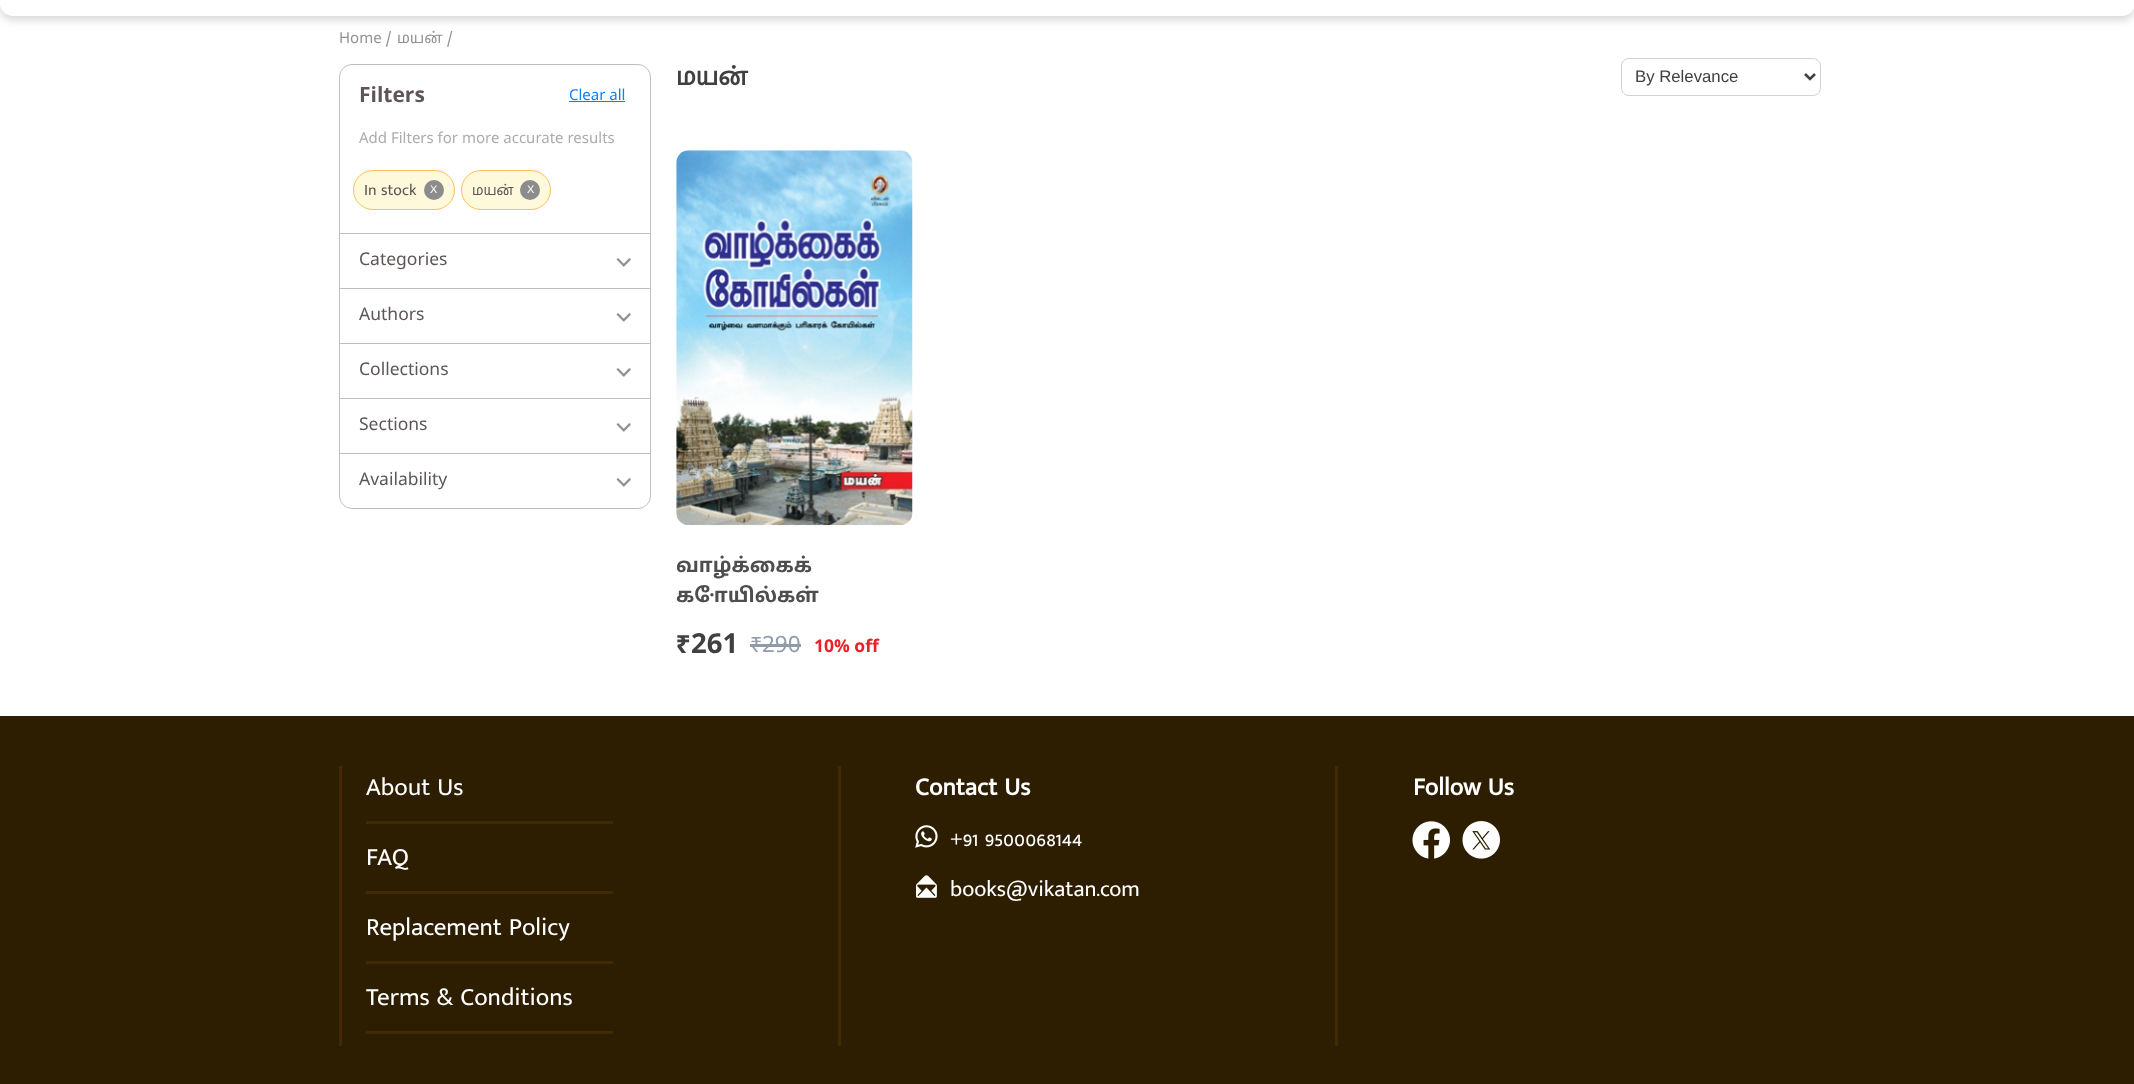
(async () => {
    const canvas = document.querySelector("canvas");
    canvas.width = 2134;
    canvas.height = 1084;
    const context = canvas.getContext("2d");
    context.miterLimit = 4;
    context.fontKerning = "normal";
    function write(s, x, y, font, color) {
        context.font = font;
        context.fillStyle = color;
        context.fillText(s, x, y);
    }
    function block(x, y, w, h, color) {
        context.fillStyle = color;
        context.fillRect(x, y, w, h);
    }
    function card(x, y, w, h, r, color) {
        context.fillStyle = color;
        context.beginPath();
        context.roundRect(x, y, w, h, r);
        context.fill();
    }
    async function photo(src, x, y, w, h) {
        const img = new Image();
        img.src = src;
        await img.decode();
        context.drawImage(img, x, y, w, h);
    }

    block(0, 0, 2134, 1084, "rgb(255, 255, 255)");
    context.fillStyle = "rgba(0, 0, 0, 0.16)";
    context.filter = "blur(4px)";
    context.beginPath();
    context.roundRect(0, -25, 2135, 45, 13);
    context.fill();
    context.filter = "none";
    card(0, -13, 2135, 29, 13, "rgb(255, 255, 255)");
    write("Home /", 339, 43, "15px Noto Sans Tamil", "rgb(146, 146, 146)");
    write("மய‌ன் /", 397, 43, "15px Noto Sans Tamil", "rgb(146, 146, 146)");
    context.beginPath();
    context.roundRect(339.5, 64.5, 311, 444, 12.5);
    context.strokeStyle = "rgb(191, 191, 191)";
    context.stroke();
    write("Filters", 359, 102, "bold 21px Noto Sans Tamil", "rgb(94, 86, 86)");
    write("Clear all", 569, 100, "15px Noto Sans Tamil", "rgb(10, 128, 251)");
    block(569, 101, 56, 1, "rgb(10, 128, 251)");
    write("Add Filters for more accurate results", 359, 143, "15px Noto Sans Tamil", "rgb(172, 172, 172)");
    context.fillStyle = "rgb(255, 249, 220)";
    context.beginPath();
    context.roundRect(353.5, 170.5, 101, 39, 19.5);
    context.fill();
    context.strokeStyle = "rgb(248, 193, 92)";
    context.stroke();
    write("In stock", 364, 195, "16px Mukta Malar", "rgb(94, 86, 86)");
    context.fillStyle = "rgb(140, 140, 140)";
    context.beginPath();
    context.arc(434, 190, 10, 0, Math.PI * 2);
    context.fill();
    write("X", 430, 193, "11px Liberation Sans", "rgb(255, 255, 255)");
    context.fillStyle = "rgb(255, 249, 220)";
    context.beginPath();
    context.roundRect(461.5, 170.5, 89, 39, 19.5);
    context.fill();
    context.stroke();
    write("மய‌ன்", 472, 195, "16px Mukta Malar", "rgb(94, 86, 86)");
    context.fillStyle = "rgb(140, 140, 140)";
    context.beginPath();
    context.arc(530, 190, 10, 0, Math.PI * 2);
    context.fill();
    write("X", 527, 193, "11px Liberation Sans", "rgb(255, 255, 255)");
    block(340, 233, 310, 1, "rgb(191, 191, 191)");
    write("Categories", 359, 265, "17.5px Noto Sans Tamil", "rgb(94, 86, 86)");
    await photo("media/1.png", 616, 257, 15, 10);
    block(340, 288, 310, 1, "rgb(191, 191, 191)");
    write("Authors", 359, 320, "17.5px Noto Sans Tamil", "rgb(94, 86, 86)");
    await photo("media/1.png", 616, 312, 15, 10);
    block(340, 343, 310, 1, "rgb(191, 191, 191)");
    write("Collections", 359, 375, "17.5px Noto Sans Tamil", "rgb(94, 86, 86)");
    await photo("media/1.png", 616, 367, 15, 10);
    block(340, 398, 310, 1, "rgb(191, 191, 191)");
    write("Sections", 359, 430, "17.5px Noto Sans Tamil", "rgb(94, 86, 86)");
    await photo("media/1.png", 616, 422, 15, 10);
    block(340, 453, 310, 1, "rgb(191, 191, 191)");
    write("Availability", 359, 485, "17.5px Noto Sans Tamil", "rgb(94, 86, 86)");
    await photo("media/1.png", 616, 477, 15, 10);
    write("மய‌ன்", 676, 85, "bold 27.5px Mukta Malar", "rgb(64, 64, 64)");
    context.beginPath();
    context.roundRect(1621.5, 58.5, 199, 37, 7.5);
    context.strokeStyle = "rgb(210, 210, 210)";
    context.stroke();
    context.beginPath();
    context.moveTo(1805, 74);
    context.lineTo(1810, 79);
    context.lineTo(1815, 74);
    context.strokeStyle = "rgb(64, 64, 64)";
    context.lineWidth = 2.5;
    context.stroke();
    write("By Relevance", 1635, 82, "16.75px Liberation Sans", "rgb(64, 64, 64)");
    await photo("media/2.png", 676, 150, 237, 376);
    write("வாழ்க்கைக்", 676, 572, "bold 20px Noto Sans Tamil", "rgb(78, 78, 78)");
    write("கோயில்கள்", 676, 602, "bold 20px Noto Sans Tamil", "rgb(78, 78, 78)");
    write("₹", 676, 653, "bold 25px Noto Sans Tamil", "rgb(64, 64, 64)");
    write("261", 691, 653, "bold 27.5px Noto Sans Tamil", "rgb(64, 64, 64)");
    write("₹", 750, 652, "21px Noto Sans Tamil", "rgb(145, 155, 168)");
    write("290", 762, 652, "22.5px Noto Sans Tamil", "rgb(145, 155, 168)");
    block(750, 644, 51, 3, "rgb(145, 155, 168)");
    write("10% off", 814, 652, "bold 17.5px Noto Sans Tamil", "rgb(233, 34, 39)");
    block(0, 716, 2134, 368, "rgb(46, 30, 1)");
    block(339, 766, 3, 280, "rgb(65, 42, 0)");
    block(366, 821, 247, 3, "rgb(65, 42, 0)");
    write("About Us", 366, 795, "25px Mukta Malar", "rgb(255, 255, 255)");
    block(366, 891, 247, 3, "rgb(65, 42, 0)");
    write("FAQ", 366, 865, "25px Mukta Malar", "rgb(255, 255, 255)");
    block(366, 961, 247, 3, "rgb(65, 42, 0)");
    write("Replacement Policy", 366, 935, "25px Mukta Malar", "rgb(255, 255, 255)");
    block(366, 1031, 247, 3, "rgb(65, 42, 0)");
    write("Terms & Conditions", 366, 1005, "25px Mukta Malar", "rgb(255, 255, 255)");
    block(838, 766, 3, 280, "rgb(65, 42, 0)");
    write("Contact Us", 915, 795, "bold 25px Mukta Malar", "rgb(255, 255, 255)");
    await photo("media/3.png", 915, 825, 23, 23);
    write("+91 9500068144", 950, 846, "22.5px Mukta Malar", "rgb(255, 255, 255)");
    await photo("media/4.png", 916, 875, 21, 23);
    write("books@vikatan.com", 950, 896, "22.5px Mukta Malar", "rgb(255, 255, 255)");
    block(1335, 766, 3, 280, "rgb(65, 42, 0)");
    write("Follow Us", 1413, 795, "bold 25px Mukta Malar", "rgb(255, 255, 255)");
    await photo("media/5.png", 1412, 821, 38, 38);
    await photo("media/6.png", 1462, 821, 38, 38);
})();
